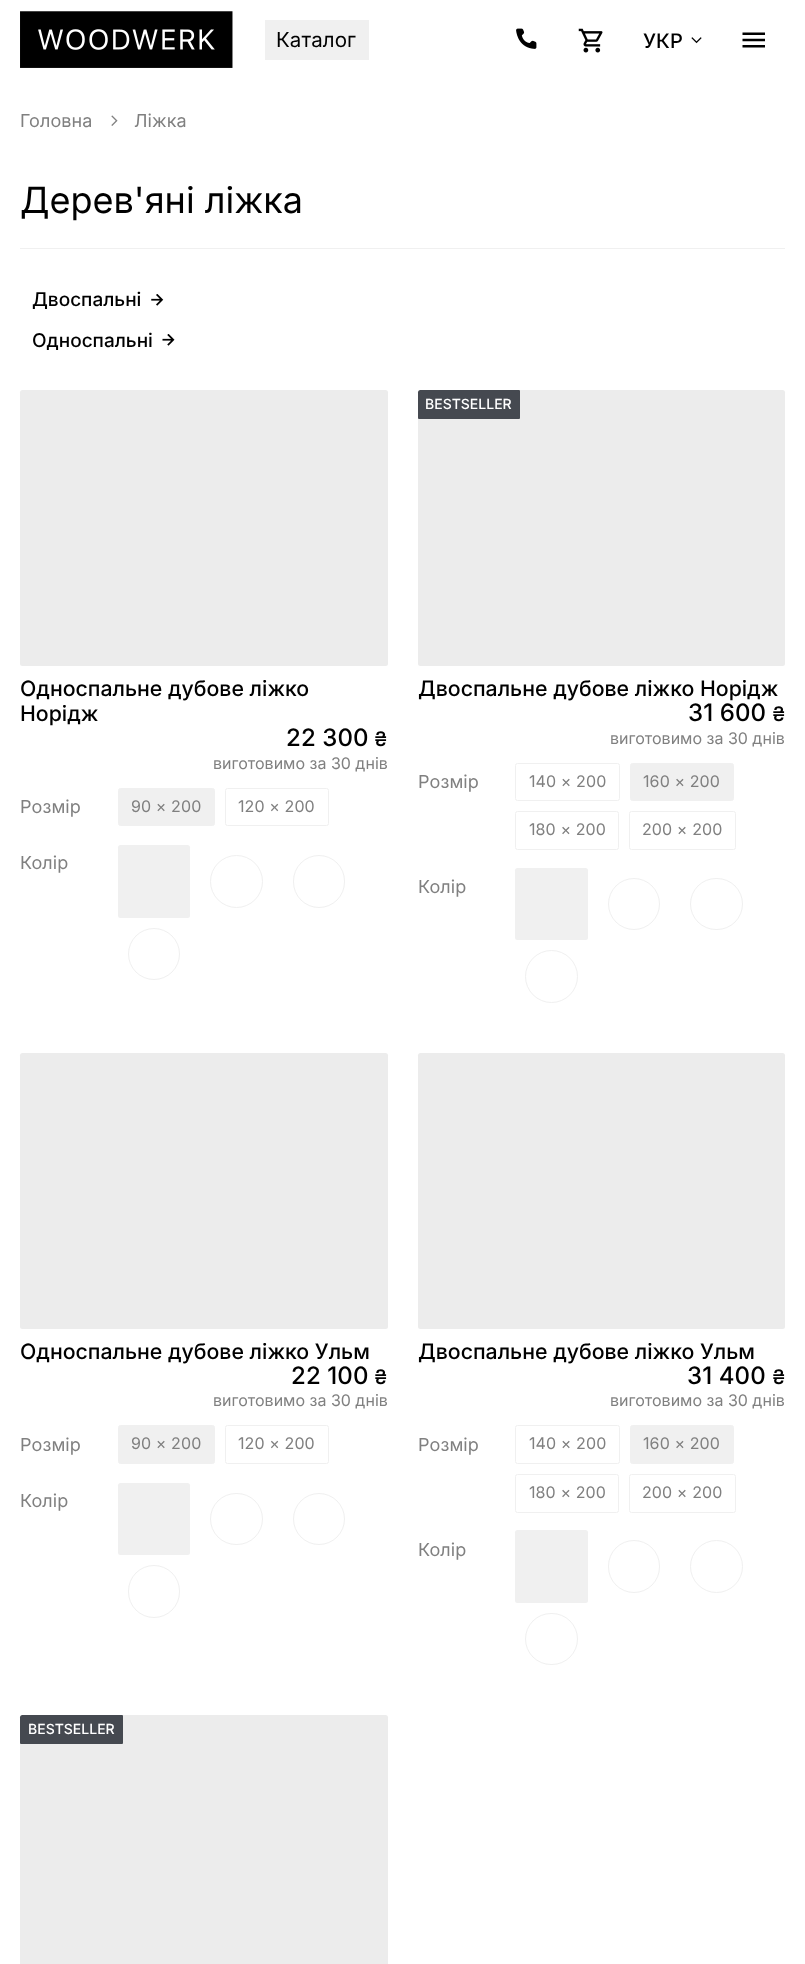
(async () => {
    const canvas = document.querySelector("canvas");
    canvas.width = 805;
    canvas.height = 1964;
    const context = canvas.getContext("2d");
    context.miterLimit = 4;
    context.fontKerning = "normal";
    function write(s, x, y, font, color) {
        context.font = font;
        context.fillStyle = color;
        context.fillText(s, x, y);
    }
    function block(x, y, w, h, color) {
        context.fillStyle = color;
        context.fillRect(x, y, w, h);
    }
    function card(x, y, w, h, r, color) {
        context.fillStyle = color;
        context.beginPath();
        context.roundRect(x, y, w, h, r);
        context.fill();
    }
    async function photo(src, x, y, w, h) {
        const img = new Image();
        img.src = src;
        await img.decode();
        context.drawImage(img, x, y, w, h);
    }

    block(0, 0, 805, 1964, "rgb(255, 255, 255)");
    await photo("media/1.png", 20, 11, 213, 57);
    block(265, 20, 104, 40, "rgb(240, 240, 240)");
    context.letterSpacing = "0.1px";
    write("Каталог", 276, 47, "20.5px Inter", "rgb(0, 0, 0)");
    await photo("media/2.png", 516, 28, 21, 21);
    await photo("media/3.png", 578, 28, 25, 25);
    write("УКР", 643, 48, "500 20px Inter", "rgb(0, 0, 0)");
    await photo("media/4.png", 691, 37, 11, 7);
    await photo("media/5.png", 742, 32, 23, 16);
    write("Головна", 20, 127, "18px Inter", "rgb(128, 128, 128)");
    await photo("media/6.png", 111, 115, 7, 11);
    write("Ліжка", 134, 127, "18px Inter", "rgb(128, 128, 128)");
    context.letterSpacing = "0px";
    write("Дерев'яні ліжка", 20, 213, "36px Inter", "rgb(0, 0, 0)");
    block(20, 248, 765, 1, "rgb(240, 240, 240)");
    write("Двоспальні", 32, 306, "500 19px Inter", "rgb(0, 0, 0)");
    await photo("media/7.png", 151, 294, 13, 12);
    write("Односпальні", 32, 347, "500 19px Inter", "rgb(0, 0, 0)");
    await photo("media/8.png", 162, 334, 13, 12);
    card(20, 390, 368, 276, 2.5, "rgb(236, 236, 236)");
    write("Односпальне дубове ліжко", 20, 696, "500 21.25px Inter", "rgb(0, 0, 0)");
    write("Норідж", 20, 721, "500 21.25px Inter", "rgb(0, 0, 0)");
    context.letterSpacing = "0.1px";
    write("22 300", 286, 746, "500 24px Inter", "rgb(0, 0, 0)");
    write("₴", 374, 746, "500 20px Inter", "rgb(0, 0, 0)");
    context.letterSpacing = "0px";
    write("виготовимо за 30 днів", 213, 769, "16px Inter", "rgb(128, 128, 128)");
    context.letterSpacing = "0.1px";
    write("Розмір", 20, 813, "18px Inter", "rgb(128, 128, 128)");
    context.fillStyle = "rgb(240, 240, 240)";
    context.beginPath();
    context.roundRect(118.5, 788.5, 96, 37, 2);
    context.fill();
    context.strokeStyle = "rgb(240, 240, 240)";
    context.stroke();
    write("90 × 200", 131, 812, "16px Inter", "rgb(128, 128, 128)");
    context.beginPath();
    context.roundRect(225.5, 788.5, 103, 37, 2);
    context.stroke();
    write("120 × 200", 238, 812, "16px Inter", "rgb(128, 128, 128)");
    write("Колір", 20, 869, "18px Inter", "rgb(128, 128, 128)");
    card(118, 845, 72, 73, 2.5, "rgb(240, 240, 240)");
    context.beginPath();
    context.arc(236.5, 881.5, 26, 0, Math.PI * 2);
    context.stroke();
    context.beginPath();
    context.roundRect(293.5, 855.5, 51, 52, 25.5);
    context.stroke();
    context.beginPath();
    context.arc(154, 954, 25.5, 0, Math.PI * 2);
    context.stroke();
    card(418, 390, 367, 276, 2.5, "rgb(236, 236, 236)");
    context.fillStyle = "rgb(69, 73, 80)";
    context.beginPath();
    context.roundRect(418, 390, 102, 29, [2.5, 1, 1, 1]);
    context.fill();
    context.letterSpacing = "0px";
    write("BESTSELLER", 425, 409, "500 14px Inter", "rgb(255, 255, 255)");
    write("Двоспальне дубове ліжко Норідж", 418, 696, "500 21.25px Inter", "rgb(0, 0, 0)");
    context.letterSpacing = "0.1px";
    write("31 600", 688, 721, "500 24px Inter", "rgb(0, 0, 0)");
    write("₴", 772, 721, "500 20px Inter", "rgb(0, 0, 0)");
    context.letterSpacing = "0px";
    write("виготовимо за 30 днів", 610, 744, "16px Inter", "rgb(128, 128, 128)");
    context.letterSpacing = "0.1px";
    write("Розмір", 418, 788, "18px Inter", "rgb(128, 128, 128)");
    context.beginPath();
    context.roundRect(515.5, 763.5, 104, 37, 2);
    context.stroke();
    write("140 × 200", 529, 787, "16px Inter", "rgb(128, 128, 128)");
    context.fillStyle = "rgb(240, 240, 240)";
    context.beginPath();
    context.roundRect(630.5, 763.5, 103, 37, 2);
    context.fill();
    context.stroke();
    write("160 × 200", 643, 787, "16px Inter", "rgb(128, 128, 128)");
    context.beginPath();
    context.roundRect(515.5, 811.5, 103, 38, 2);
    context.stroke();
    write("180 × 200", 529, 835, "16px Inter", "rgb(128, 128, 128)");
    context.beginPath();
    context.roundRect(629.5, 811.5, 106, 38, 2);
    context.stroke();
    write("200 × 200", 642, 835, "16px Inter", "rgb(128, 128, 128)");
    write("Колір", 418, 893, "18px Inter", "rgb(128, 128, 128)");
    card(515, 868, 73, 72, 2.5, "rgb(240, 240, 240)");
    context.beginPath();
    context.arc(634, 904, 25.5, 0, Math.PI * 2);
    context.stroke();
    context.beginPath();
    context.roundRect(690.5, 878.5, 52, 51, 25.5);
    context.stroke();
    context.beginPath();
    context.arc(551.5, 976.5, 26, 0, Math.PI * 2);
    context.stroke();
    card(20, 1053, 368, 276, 2.5, "rgb(236, 236, 236)");
    context.letterSpacing = "0px";
    write("Односпальне дубове ліжко Ульм", 20, 1359, "500 21.25px Inter", "rgb(0, 0, 0)");
    context.letterSpacing = "0.1px";
    write("22 100", 291, 1384, "500 24px Inter", "rgb(0, 0, 0)");
    write("₴", 374, 1384, "500 20px Inter", "rgb(0, 0, 0)");
    context.letterSpacing = "0px";
    write("виготовимо за 30 днів", 213, 1406, "16px Inter", "rgb(128, 128, 128)");
    context.letterSpacing = "0.1px";
    write("Розмір", 20, 1451, "18px Inter", "rgb(128, 128, 128)");
    context.fillStyle = "rgb(240, 240, 240)";
    context.beginPath();
    context.roundRect(118.5, 1425.5, 96, 38, 2);
    context.fill();
    context.stroke();
    write("90 × 200", 131, 1449, "16px Inter", "rgb(128, 128, 128)");
    context.beginPath();
    context.roundRect(225.5, 1425.5, 103, 38, 2);
    context.stroke();
    write("120 × 200", 238, 1449, "16px Inter", "rgb(128, 128, 128)");
    write("Колір", 20, 1507, "18px Inter", "rgb(128, 128, 128)");
    card(118, 1483, 72, 72, 2.5, "rgb(240, 240, 240)");
    context.beginPath();
    context.roundRect(210.5, 1493.5, 52, 51, 25.5);
    context.stroke();
    context.beginPath();
    context.arc(319, 1519, 25.5, 0, Math.PI * 2);
    context.stroke();
    context.beginPath();
    context.roundRect(128.5, 1565.5, 51, 52, 25.5);
    context.stroke();
    card(418, 1053, 367, 276, 2.5, "rgb(236, 236, 236)");
    context.letterSpacing = "0px";
    write("Двоспальне дубове ліжко Ульм", 418, 1359, "500 21.25px Inter", "rgb(0, 0, 0)");
    context.letterSpacing = "0.1px";
    write("31 400", 687, 1384, "500 24px Inter", "rgb(0, 0, 0)");
    write("₴", 772, 1384, "500 20px Inter", "rgb(0, 0, 0)");
    context.letterSpacing = "0px";
    write("виготовимо за 30 днів", 610, 1406, "16px Inter", "rgb(128, 128, 128)");
    context.letterSpacing = "0.1px";
    write("Розмір", 418, 1451, "18px Inter", "rgb(128, 128, 128)");
    context.beginPath();
    context.roundRect(515.5, 1425.5, 104, 38, 2);
    context.stroke();
    write("140 × 200", 529, 1449, "16px Inter", "rgb(128, 128, 128)");
    context.fillStyle = "rgb(240, 240, 240)";
    context.beginPath();
    context.roundRect(630.5, 1425.5, 103, 38, 2);
    context.fill();
    context.stroke();
    write("160 × 200", 643, 1449, "16px Inter", "rgb(128, 128, 128)");
    context.beginPath();
    context.roundRect(515.5, 1474.5, 103, 38, 2);
    context.stroke();
    write("180 × 200", 529, 1498, "16px Inter", "rgb(128, 128, 128)");
    context.beginPath();
    context.roundRect(629.5, 1474.5, 106, 38, 2);
    context.stroke();
    write("200 × 200", 642, 1498, "16px Inter", "rgb(128, 128, 128)");
    write("Колір", 418, 1556, "18px Inter", "rgb(128, 128, 128)");
    card(515, 1530, 73, 73, 2.5, "rgb(240, 240, 240)");
    context.beginPath();
    context.roundRect(608.5, 1540.5, 51, 52, 25.5);
    context.stroke();
    context.beginPath();
    context.arc(716.5, 1566.5, 26, 0, Math.PI * 2);
    context.stroke();
    context.beginPath();
    context.roundRect(525.5, 1613.5, 52, 51, 25.5);
    context.stroke();
    card(20, 1715, 368, 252, 2.5, "rgb(236, 236, 236)");
    context.fillStyle = "rgb(69, 73, 80)";
    context.beginPath();
    context.roundRect(20, 1715, 103, 29, [2.5, 1, 1, 1]);
    context.fill();
    context.letterSpacing = "0px";
    write("BESTSELLER", 28, 1734, "500 14px Inter", "rgb(255, 255, 255)");
})();
